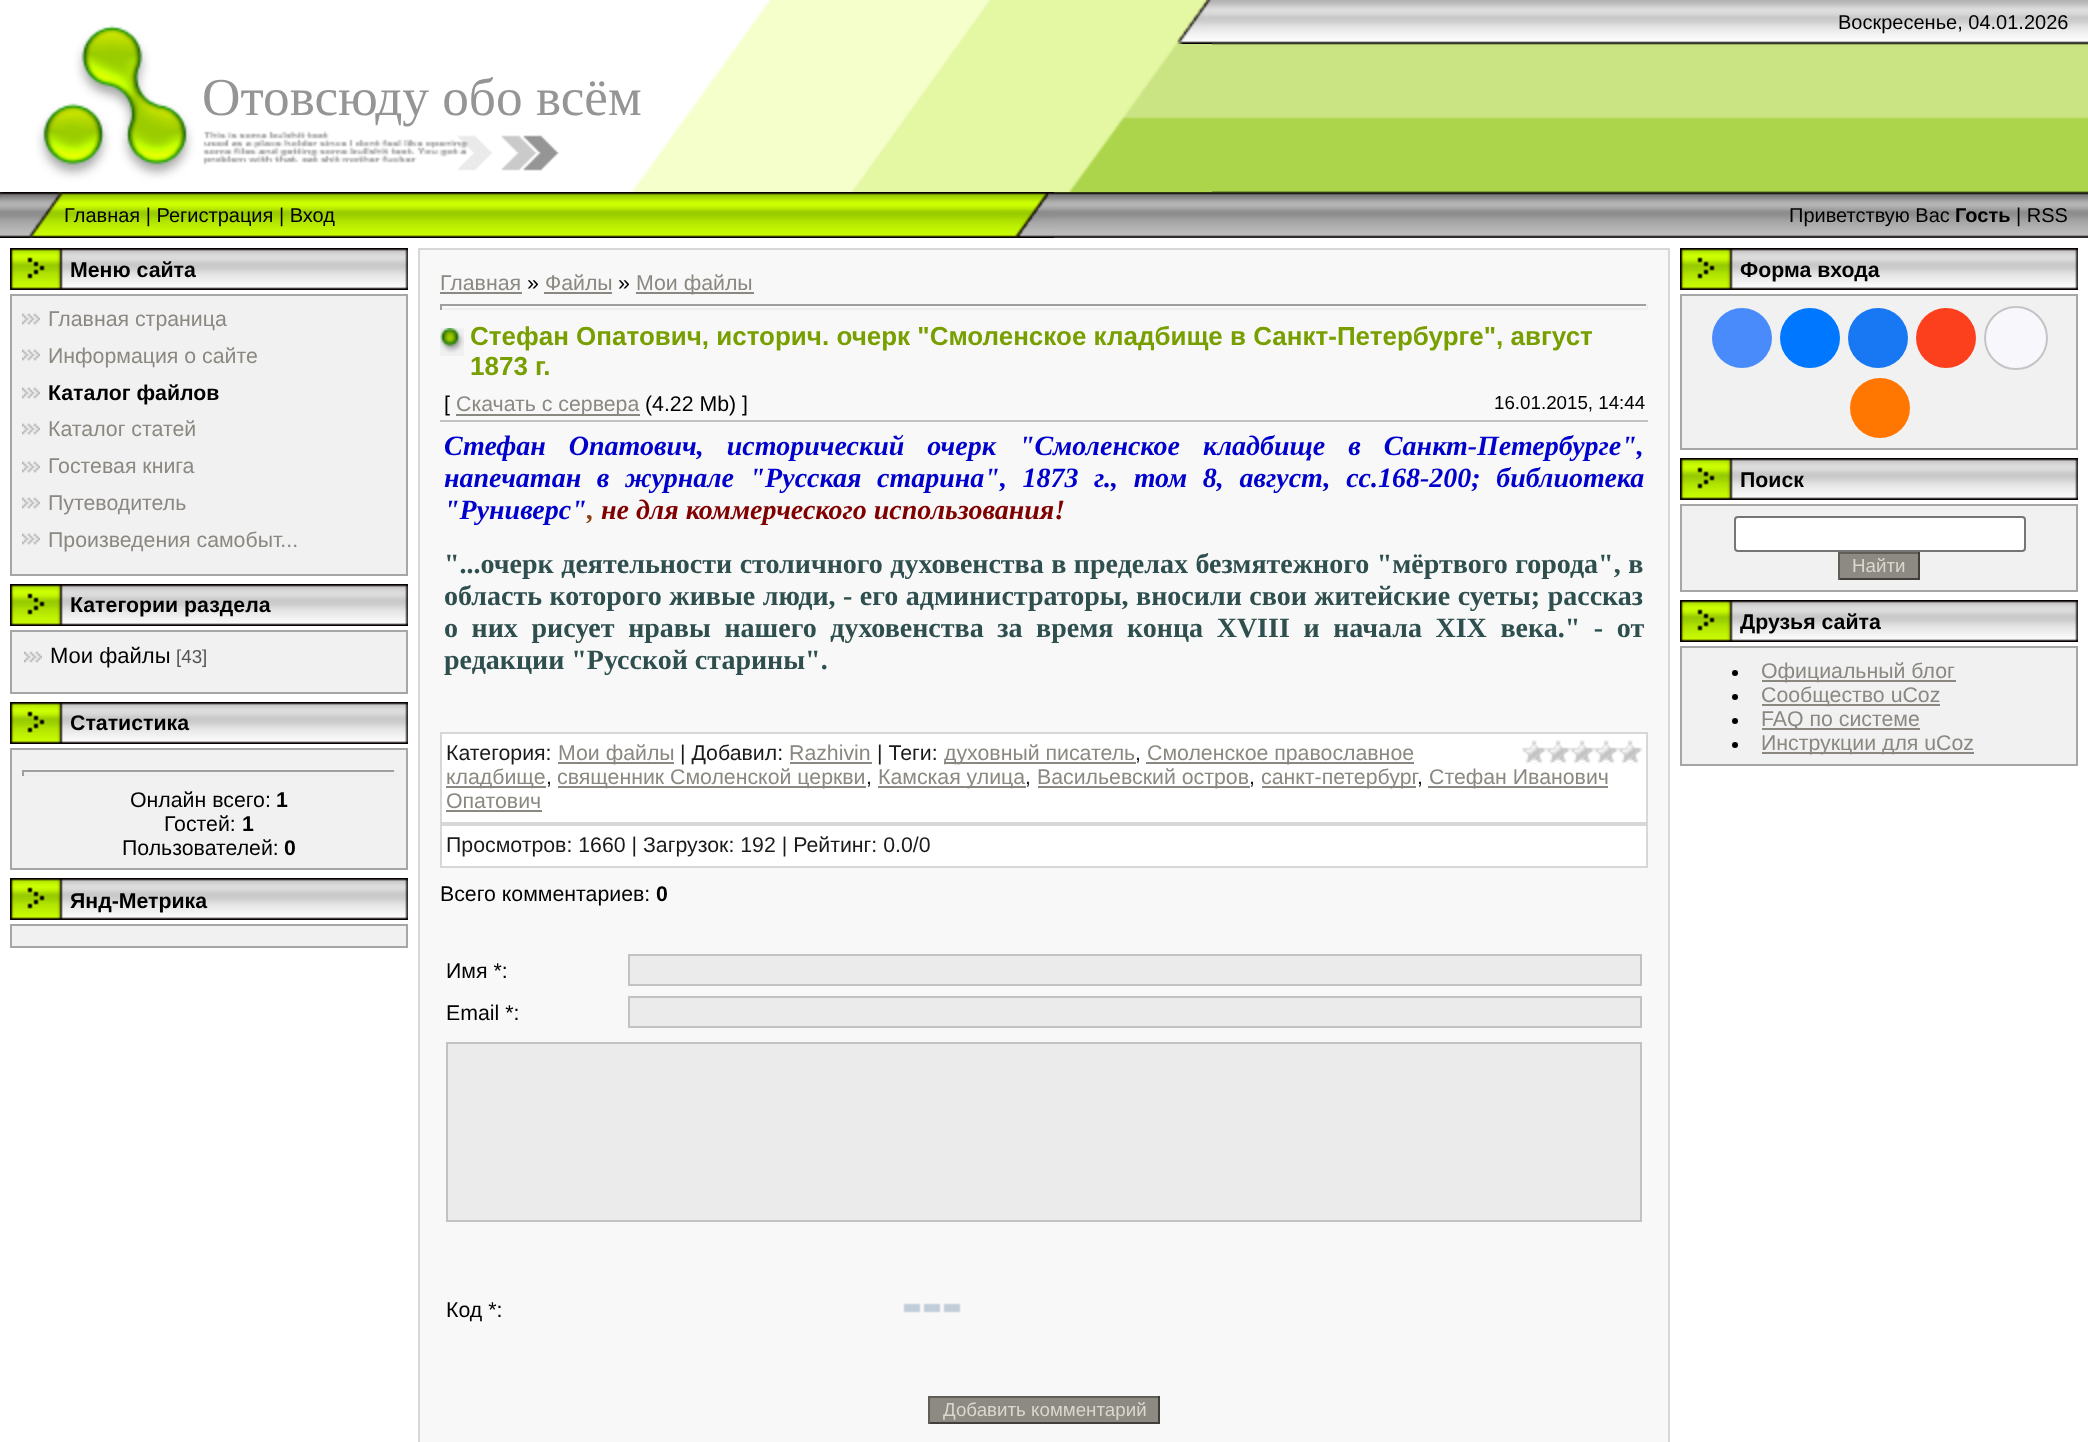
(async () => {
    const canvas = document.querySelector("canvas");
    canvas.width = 2088;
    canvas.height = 1442;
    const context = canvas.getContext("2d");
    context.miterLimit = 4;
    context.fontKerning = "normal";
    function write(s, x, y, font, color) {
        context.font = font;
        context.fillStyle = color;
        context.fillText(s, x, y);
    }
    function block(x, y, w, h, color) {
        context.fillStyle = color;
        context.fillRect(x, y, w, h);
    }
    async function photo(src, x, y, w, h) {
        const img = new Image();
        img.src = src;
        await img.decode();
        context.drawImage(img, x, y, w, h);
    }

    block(0, 0, 2088, 1442, "rgb(255, 255, 255)");
    await photo("media/1.png", 1054, 0, 1034, 238);
    await photo("media/2.png", 0, 0, 202, 44);
    await photo("media/3.png", 202, 0, 1010, 44);
    write("Воскресенье, 04.01.2026", 1838, 29, "20px Liberation Sans", "rgb(0, 0, 0)");
    await photo("media/4.png", 0, 44, 202, 148);
    await photo("media/5.png", 202, 44, 1010, 148);
    write("Отовсюду обо всём", 202, 115, "53.25px Liberation Serif", "rgb(150, 149, 149)");
    await photo("media/6.png", 0, 192, 64, 46);
    await photo("media/7.png", 64, 192, 936, 46);
    write("Главная | Регистрация | Вход", 64, 222, "20px Liberation Sans", "rgb(0, 0, 0)");
    await photo("media/8.png", 1000, 192, 54, 46);
    write("Приветствую Вас", 1789, 222, "20px Liberation Sans", "rgb(0, 0, 0)");
    write("Гость", 1955, 222, "bold 20px Liberation Sans", "rgb(0, 0, 0)");
    write("| RSS", 2016, 222, "20px Liberation Sans", "rgb(0, 0, 0)");
    await photo("media/9.png", 10, 248, 398, 42);
    write("Меню сайта", 70, 277, "bold 21.3px Liberation Sans", "rgb(0, 0, 0)");
    context.fillStyle = "rgb(241, 241, 241)";
    context.beginPath();
    context.rect(11, 295, 396, 280);
    context.fill();
    context.strokeStyle = "rgb(167, 166, 166)";
    context.lineWidth = 2;
    context.stroke();
    await photo("media/10.png", 22, 313, 18, 12);
    write("Главная страница", 48, 326, "21.3px Liberation Sans", "rgb(139, 136, 129)");
    await photo("media/10.png", 22, 349, 18, 12);
    write("Информация о сайте", 48, 363, "21.3px Liberation Sans", "rgb(139, 136, 129)");
    await photo("media/10.png", 22, 387, 18, 12);
    write("Каталог файлов", 48, 400, "bold 21.3px Liberation Sans", "rgb(0, 0, 0)");
    await photo("media/10.png", 22, 423, 18, 12);
    write("Каталог статей", 48, 436, "21.3px Liberation Sans", "rgb(139, 136, 129)");
    await photo("media/10.png", 22, 461, 18, 12);
    write("Гостевая книга", 48, 473, "21.3px Liberation Sans", "rgb(139, 136, 129)");
    await photo("media/10.png", 22, 497, 18, 12);
    write("Путеводитель", 48, 510, "21.3px Liberation Sans", "rgb(139, 136, 129)");
    await photo("media/10.png", 22, 533, 18, 12);
    write("Произведения самобыт...", 48, 547, "21.3px Liberation Sans", "rgb(139, 136, 129)");
    await photo("media/9.png", 10, 584, 398, 42);
    write("Категории раздела", 70, 612, "bold 21.3px Liberation Sans", "rgb(0, 0, 0)");
    context.fillStyle = "rgb(241, 241, 241)";
    context.beginPath();
    context.rect(11, 631, 396, 62);
    context.fill();
    context.stroke();
    await photo("media/10.png", 24, 651, 18, 12);
    write("Мои файлы", 50, 663, "22px Liberation Sans", "rgb(0, 0, 0)");
    write("[43]", 176, 663, "18.75px Liberation Sans", "rgb(85, 85, 85)");
    await photo("media/9.png", 10, 702, 398, 42);
    write("Статистика", 70, 730, "bold 21.3px Liberation Sans", "rgb(0, 0, 0)");
    context.fillStyle = "rgb(241, 241, 241)";
    context.beginPath();
    context.rect(11, 749, 396, 120);
    context.fill();
    context.stroke();
    block(22, 770, 374, 2, "rgb(159, 159, 159)");
    block(394, 770, 2, 6, "rgb(238, 238, 238)");
    block(22, 774, 374, 2, "rgb(238, 238, 238)");
    block(22, 770, 2, 6, "rgb(159, 159, 159)");
    write("Онлайн всего:", 130, 807, "21.3px Liberation Sans", "rgb(0, 0, 0)");
    write("1", 276, 807, "bold 21.3px Liberation Sans", "rgb(0, 0, 0)");
    write("Гостей:", 164, 831, "21.3px Liberation Sans", "rgb(0, 0, 0)");
    write("1", 242, 831, "bold 21.3px Liberation Sans", "rgb(0, 0, 0)");
    write("Пользователей:", 122, 855, "21.3px Liberation Sans", "rgb(0, 0, 0)");
    write("0", 284, 855, "bold 21.3px Liberation Sans", "rgb(0, 0, 0)");
    await photo("media/9.png", 10, 878, 398, 42);
    write("Янд-Метрика", 70, 908, "bold 21.3px Liberation Sans", "rgb(0, 0, 0)");
    context.fillStyle = "rgb(241, 241, 241)";
    context.beginPath();
    context.rect(11, 925, 396, 22);
    context.fill();
    context.stroke();
    context.strokeStyle = "rgb(215, 215, 215)";
    context.strokeRect(419, 249, 1250, 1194);
    block(420, 250, 1248, 1192, "rgb(248, 248, 248)");
    write("Главная", 440, 290, "21.3px Liberation Sans", "rgb(139, 136, 129)");
    block(440, 292, 82, 2, "rgb(139, 136, 129)");
    write("»", 527, 290, "21.3px Liberation Sans", "rgb(0, 0, 0)");
    write("Файлы", 545, 290, "21.3px Liberation Sans", "rgb(139, 136, 129)");
    block(544, 292, 68, 2, "rgb(139, 136, 129)");
    write("»", 618, 290, "21.3px Liberation Sans", "rgb(0, 0, 0)");
    block(636, 292, 118, 2, "rgb(139, 136, 129)");
    write("Мои файлы", 636, 290, "21.3px Liberation Sans", "rgb(139, 136, 129)");
    block(440, 304, 1208, 2, "rgb(159, 159, 159)");
    block(1646, 304, 2, 6, "rgb(238, 238, 238)");
    block(440, 308, 1208, 2, "rgb(238, 238, 238)");
    block(440, 304, 2, 6, "rgb(159, 159, 159)");
    await photo("media/11.png", 440, 328, 24, 28);
    write("Стефан Опатович, историч. очерк \"Смоленское кладбище в Санкт-Петербурге\", август", 470, 345, "bold 26px Liberation Sans", "rgb(119, 159, 0)");
    write("1873 г.", 470, 375, "bold 26px Liberation Sans", "rgb(119, 159, 0)");
    write("[", 444, 411, "21.3px Liberation Sans", "rgb(0, 0, 0)");
    block(456, 414, 184, 2, "rgb(139, 136, 129)");
    write("Скачать с сервера", 456, 411, "21.3px Liberation Sans", "rgb(139, 136, 129)");
    write("(4.22 Mb) ]", 645, 411, "21.3px Liberation Sans", "rgb(0, 0, 0)");
    write("16.01.2015, 14:44", 1494, 409, "18.75px Liberation Sans", "rgb(0, 0, 0)");
    block(440, 420, 1208, 2, "rgb(194, 194, 194)");
    context.wordSpacing = "16px";
    write("Стефан Опатович, исторический очерк \"Смоленское кладбище в Санкт-Петербурге\",", 444, 455, "italic bold 28px Liberation Serif", "rgb(0, 0, 205)");
    context.wordSpacing = "8.6px";
    write("напечатан в журнале \"Русская старина\", 1873 г., том 8, август, сс.168-200; библиотека", 444, 487, "italic bold 28px Liberation Serif", "rgb(0, 0, 205)");
    context.wordSpacing = "0px";
    write("\"Руниверс\"", 444, 519, "italic bold 28px Liberation Serif", "rgb(0, 0, 205)");
    write(",", 587, 519, "italic bold 28px Liberation Serif", "rgb(139, 69, 19)");
    write("не для коммерческого использования!", 601, 519, "italic bold 28px Liberation Serif", "rgb(128, 0, 0)");
    context.wordSpacing = "0.5px";
    write("\"...очерк деятельности столичного духовенства в пределах безмятежного \"мёртвого города\", в", 444, 573, "bold 28px Liberation Serif", "rgb(47, 79, 79)");
    write("область которого живые люди, - его администраторы, вносили свои житейские суеты; рассказ", 444, 605, "bold 28px Liberation Serif", "rgb(47, 79, 79)");
    context.wordSpacing = "6.6px";
    write("о них рисует нравы нашего духовенства за время конца XVIII и начала XIX века.\" - от", 444, 637, "bold 28px Liberation Serif", "rgb(47, 79, 79)");
    context.wordSpacing = "0px";
    write("редакции \"Русской старины\".", 444, 669, "bold 28px Liberation Serif", "rgb(47, 79, 79)");
    context.fillStyle = "rgb(255, 255, 255)";
    context.beginPath();
    context.rect(441, 733, 1206, 90);
    context.fill();
    context.stroke();
    write("Категория:", 446, 760, "21.3px Liberation Sans", "rgb(26, 26, 26)");
    block(558, 762, 116, 2, "rgb(139, 136, 129)");
    write("Мои файлы", 558, 760, "21.3px Liberation Sans", "rgb(139, 136, 129)");
    write("| Добавил:", 680, 760, "21.3px Liberation Sans", "rgb(26, 26, 26)");
    write("Razhivin", 789, 760, "21.3px Liberation Sans", "rgb(139, 136, 129)");
    block(790, 762, 82, 2, "rgb(139, 136, 129)");
    write("| Теги:", 877, 760, "21.3px Liberation Sans", "rgb(26, 26, 26)");
    block(944, 762, 192, 2, "rgb(139, 136, 129)");
    write("духовный писатель", 944, 760, "21.3px Liberation Sans", "rgb(139, 136, 129)");
    write(",", 1135, 760, "21.3px Liberation Sans", "rgb(26, 26, 26)");
    block(1146, 762, 268, 2, "rgb(139, 136, 129)");
    write("Смоленское православное", 1147, 760, "21.3px Liberation Sans", "rgb(139, 136, 129)");
    await photo("media/12.png", 1522, 740, 120, 24);
    block(446, 786, 100, 2, "rgb(139, 136, 129)");
    write("кладбище", 446, 784, "21.3px Liberation Sans", "rgb(139, 136, 129)");
    write(",", 546, 784, "21.3px Liberation Sans", "rgb(26, 26, 26)");
    block(558, 786, 308, 2, "rgb(139, 136, 129)");
    write("священник Смоленской церкви", 557, 784, "21.3px Liberation Sans", "rgb(139, 136, 129)");
    write(",", 866, 784, "21.3px Liberation Sans", "rgb(26, 26, 26)");
    block(878, 786, 148, 2, "rgb(139, 136, 129)");
    write("Камская улица", 878, 784, "21.3px Liberation Sans", "rgb(139, 136, 129)");
    write(",", 1025, 784, "21.3px Liberation Sans", "rgb(26, 26, 26)");
    block(1038, 786, 212, 2, "rgb(139, 136, 129)");
    write("Васильевский остров", 1037, 784, "21.3px Liberation Sans", "rgb(139, 136, 129)");
    write(",", 1249, 784, "21.3px Liberation Sans", "rgb(26, 26, 26)");
    block(1262, 786, 154, 2, "rgb(139, 136, 129)");
    write("санкт-петербург", 1261, 784, "21.3px Liberation Sans", "rgb(139, 136, 129)");
    block(1428, 786, 180, 2, "rgb(139, 136, 129)");
    write("Стефан Иванович", 1429, 784, "21.3px Liberation Sans", "rgb(139, 136, 129)");
    write(",", 1417, 784, "21.3px Liberation Sans", "rgb(26, 26, 26)");
    write("Опатович", 446, 808, "21.3px Liberation Sans", "rgb(139, 136, 129)");
    block(446, 810, 96, 2, "rgb(139, 136, 129)");
    context.fillStyle = "rgb(255, 255, 255)";
    context.beginPath();
    context.rect(441, 825, 1206, 42);
    context.fill();
    context.stroke();
    write("Просмотров: 1660 | Загрузок: 192 | Рейтинг: 0.0/0", 446, 852, "21.3px Liberation Sans", "rgb(26, 26, 26)");
    write("Всего комментариев:", 440, 901, "21.3px Liberation Sans", "rgb(0, 0, 0)");
    write("0", 656, 901, "bold 21.3px Liberation Sans", "rgb(0, 0, 0)");
    write("Имя *:", 446, 978, "21.3px Liberation Sans", "rgb(0, 0, 0)");
    context.fillStyle = "rgb(235, 235, 235)";
    context.beginPath();
    context.rect(629, 955, 1012, 30);
    context.fill();
    context.strokeStyle = "rgb(194, 194, 194)";
    context.stroke();
    write("Email *:", 446, 1020, "21.3px Liberation Sans", "rgb(0, 0, 0)");
    context.fillStyle = "rgb(235, 235, 235)";
    context.beginPath();
    context.rect(629, 997, 1012, 30);
    context.fill();
    context.stroke();
    context.beginPath();
    context.rect(447, 1043, 1194, 178);
    context.fill();
    context.stroke();
    write("Код *:", 446, 1317, "21.3px Liberation Sans", "rgb(0, 0, 0)");
    await photo("media/13.png", 903, 1303, 58, 10);
    block(930, 1398, 228, 24, "rgb(141, 138, 131)");
    block(928, 1396, 232, 2, "rgb(97, 94, 88)");
    block(1158, 1396, 2, 28, "rgb(65, 63, 59)");
    block(928, 1422, 232, 2, "rgb(65, 63, 59)");
    block(928, 1396, 2, 28, "rgb(97, 94, 88)");
    write("Добавить комментарий", 943, 1416, "18.75px Liberation Sans", "rgb(218, 215, 204)");
    await photo("media/9.png", 1680, 248, 398, 42);
    write("Форма входа", 1740, 277, "bold 21.3px Liberation Sans", "rgb(0, 0, 0)");
    context.fillStyle = "rgb(241, 241, 241)";
    context.beginPath();
    context.rect(1681, 295, 396, 154);
    context.fill();
    context.strokeStyle = "rgb(167, 166, 166)";
    context.stroke();
    context.fillStyle = "rgb(73, 139, 250)";
    context.beginPath();
    context.arc(1742, 338, 30, 0, Math.PI * 2);
    context.fill();
    context.fillStyle = "rgb(0, 119, 255)";
    context.beginPath();
    context.arc(1810, 338, 30, 0, Math.PI * 2);
    context.fill();
    context.fillStyle = "rgb(24, 119, 242)";
    context.beginPath();
    context.arc(1878, 338, 30, 0, Math.PI * 2);
    context.fill();
    context.fillStyle = "rgb(252, 63, 29)";
    context.beginPath();
    context.arc(1946, 338, 30, 0, Math.PI * 2);
    context.fill();
    context.fillStyle = "rgb(248, 248, 252)";
    context.beginPath();
    context.arc(2016, 338, 31, 0, Math.PI * 2);
    context.fill();
    context.strokeStyle = "rgb(196, 196, 196)";
    context.stroke();
    context.fillStyle = "rgb(255, 119, 0)";
    context.beginPath();
    context.arc(1880, 408, 30, 0, Math.PI * 2);
    context.fill();
    await photo("media/9.png", 1680, 458, 398, 42);
    write("Поиск", 1740, 487, "bold 21.3px Liberation Sans", "rgb(0, 0, 0)");
    context.fillStyle = "rgb(241, 241, 241)";
    context.beginPath();
    context.rect(1681, 505, 396, 86);
    context.fill();
    context.strokeStyle = "rgb(167, 166, 166)";
    context.stroke();
    context.fillStyle = "rgb(255, 255, 255)";
    context.beginPath();
    context.roundRect(1735, 517, 290, 34, 3);
    context.fill();
    context.strokeStyle = "rgb(118, 118, 118)";
    context.stroke();
    block(1840, 554, 78, 24, "rgb(141, 138, 131)");
    block(1838, 552, 82, 2, "rgb(97, 94, 88)");
    block(1918, 552, 2, 28, "rgb(65, 63, 59)");
    block(1838, 578, 82, 2, "rgb(65, 63, 59)");
    block(1838, 552, 2, 28, "rgb(97, 94, 88)");
    write("Найти", 1852, 572, "18.75px Liberation Sans", "rgb(218, 215, 204)");
    await photo("media/9.png", 1680, 600, 398, 42);
    write("Друзья сайта", 1740, 629, "bold 21.3px Liberation Sans", "rgb(0, 0, 0)");
    context.fillStyle = "rgb(241, 241, 241)";
    context.beginPath();
    context.rect(1681, 647, 396, 118);
    context.fill();
    context.strokeStyle = "rgb(167, 166, 166)";
    context.stroke();
    context.fillStyle = "rgb(0, 0, 0)";
    context.beginPath();
    context.arc(1735, 673, 3, 0, Math.PI * 2);
    context.fill();
    block(1762, 680, 194, 2, "rgb(139, 136, 129)");
    write("Официальный блог", 1761, 678, "21.3px Liberation Sans", "rgb(139, 136, 129)");
    context.fillStyle = "rgb(0, 0, 0)";
    context.beginPath();
    context.arc(1735, 697, 3, 0, Math.PI * 2);
    context.fill();
    block(1762, 704, 178, 2, "rgb(139, 136, 129)");
    write("Сообщество uCoz", 1761, 702, "21.3px Liberation Sans", "rgb(139, 136, 129)");
    context.fillStyle = "rgb(0, 0, 0)";
    context.beginPath();
    context.arc(1735, 721, 3, 0, Math.PI * 2);
    context.fill();
    block(1762, 728, 158, 2, "rgb(139, 136, 129)");
    write("FAQ по системе", 1761, 726, "21.3px Liberation Sans", "rgb(139, 136, 129)");
    context.fillStyle = "rgb(0, 0, 0)";
    context.beginPath();
    context.arc(1735, 745, 3, 0, Math.PI * 2);
    context.fill();
    block(1762, 752, 212, 2, "rgb(139, 136, 129)");
    write("Инструкции для uCoz", 1761, 750, "21.3px Liberation Sans", "rgb(139, 136, 129)");
})();
